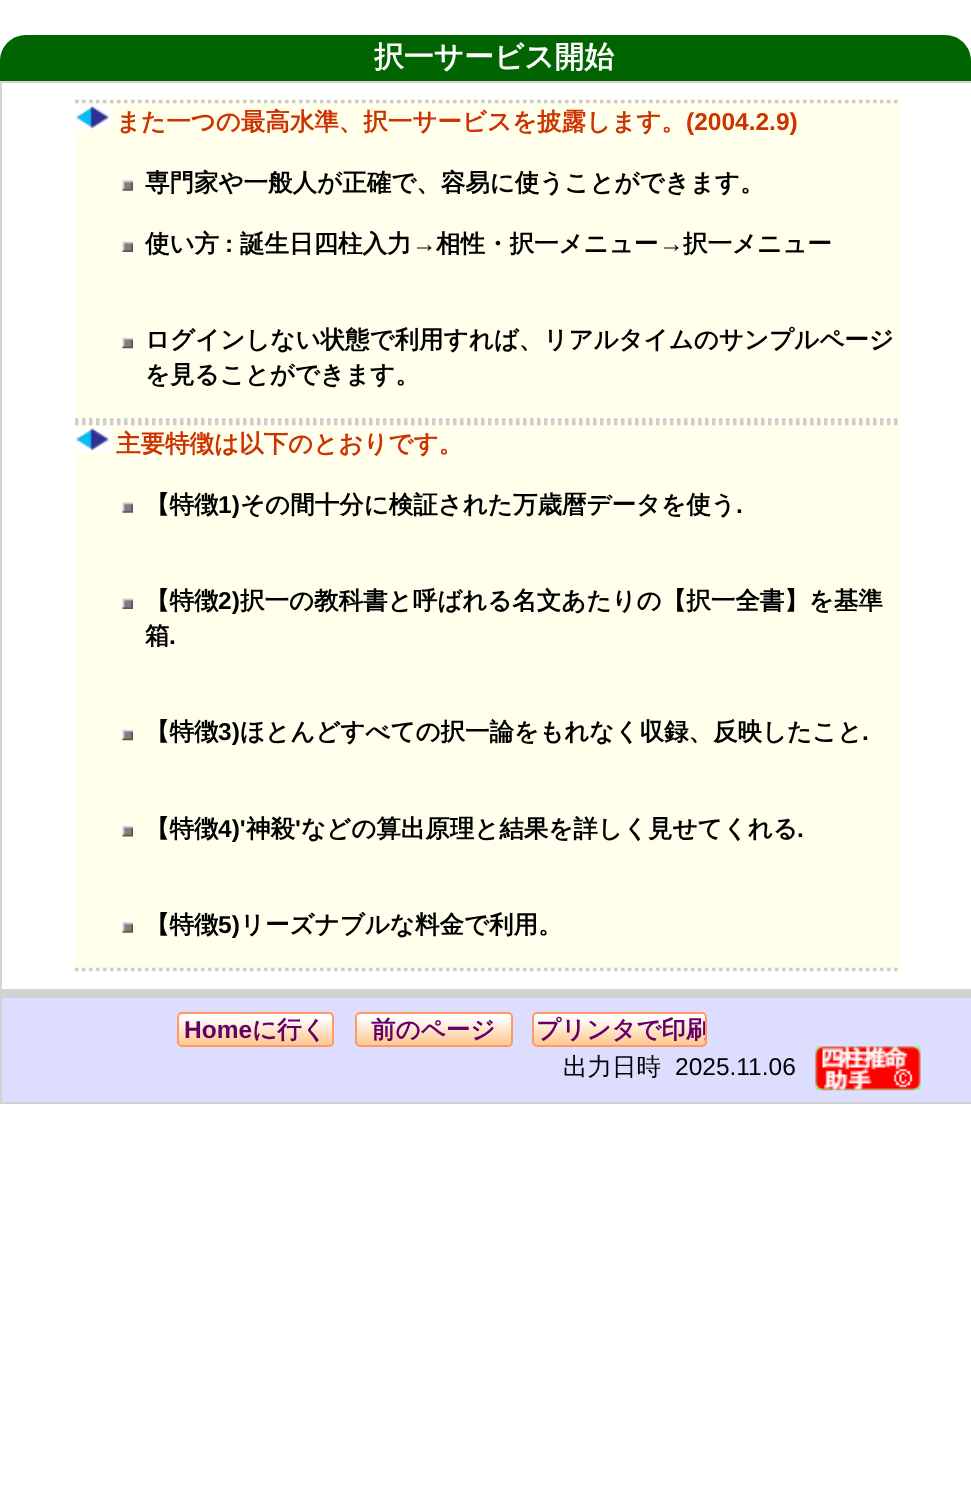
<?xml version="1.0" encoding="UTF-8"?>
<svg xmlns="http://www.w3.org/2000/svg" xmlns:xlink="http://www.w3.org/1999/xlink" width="971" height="1497">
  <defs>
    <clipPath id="clip1"><rect x="534" y="1013" width="171" height="32" rx="4" /></clipPath>
  </defs>
  <rect width="100%" height="100%" fill="#ffffff" />
  <path d="M 26 35 h 919 c 14.5 0 26 11.5 26 26 v 20 h -971 v -20 c 0 -14.5 11.5 -26 26 -26 z" fill="#006400" />
  <rect y="81" width="971" height="2" fill="#d3d3d3" />
  <rect y="989" width="971" height="7" fill="#d3d3d3" />
  <rect y="81" width="2" height="915" fill="#d3d3d3" />
  <rect x="75" y="100" width="825" height="871" fill="#ffffec" />
  <path d="M 75 101.5 h 824.5" fill="none" stroke="#cccccc" stroke-width="3.5" stroke-dasharray="3.5 3.5" />
  <path d="M 75 420 h 824.5" fill="none" stroke="#cccccc" stroke-width="3.5" stroke-dasharray="3.5 3.5" />
  <image x="75" y="105" width="36" height="25" xlink:href="image1.png" />
  <image x="122" y="180" width="11" height="11" xlink:href="image2.png" />
  <image x="122" y="241" width="11" height="11" xlink:href="image3.png" />
  <image x="122" y="337" width="11" height="12" xlink:href="image4.png" />
  <path d="M 75 423.5 h 824.5" fill="none" stroke="#cccccc" stroke-width="3.5" stroke-dasharray="3.5 3.5" />
  <path d="M 75 969.5 h 824.5" fill="none" stroke="#cccccc" stroke-width="3.5" stroke-dasharray="3.5 3.5" />
  <image x="75" y="427" width="36" height="25" xlink:href="image5.png" />
  <image x="122" y="502" width="11" height="11" xlink:href="image2.png" />
  <image x="122" y="598" width="11" height="11" xlink:href="image3.png" />
  <image x="122" y="729" width="11" height="12" xlink:href="image4.png" />
  <image x="122" y="826" width="11" height="11" xlink:href="image6.png" />
  <image x="122" y="922" width="11" height="11" xlink:href="image2.png" />
  <rect x="1" y="997" width="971" height="106" fill="#ddddff" stroke="#d3d3d3" stroke-width="2" />
  <image x="176" y="1011" width="159" height="36" xlink:href="image7.png" />
  <rect x="178" y="1013" width="155" height="33" rx="4" fill="none" stroke="#ff9966" stroke-width="2" />
  <image x="355" y="1011" width="158" height="36" xlink:href="image8.png" />
  <rect x="356" y="1013" width="156" height="33" rx="4" fill="none" stroke="#ff9966" stroke-width="2" />
  <image x="532" y="1011" width="175" height="36" xlink:href="image9.png" />
  <rect x="533" y="1013" width="173" height="33" rx="4" fill="none" stroke="#ff9966" stroke-width="2" />
  <image x="815" y="1046" width="106" height="45" xlink:href="image10.png" />
  <text x="374" y="67" style="font-family: WenQuanYi Zen Hei; font-size: 29.75px; font-weight: bold; fill: #ffffff">択一サービス開始</text>
  <text x="116" y="130" style="font-family: WenQuanYi Zen Hei; font-size: 24.5px; font-weight: bold; fill: #cc3300">また一つの最高水準、択一サービスを披露します。</text>
  <text x="686" y="130" style="font-family: Liberation Sans; font-size: 24.5px; font-weight: bold; fill: #cc3300">(2004.2.9)</text>
  <text x="145" y="191" style="font-family: WenQuanYi Zen Hei; font-size: 24.5px; font-weight: bold; fill: #000000">専門家や一般人が正確で、容易に使うことができます。</text>
  <text x="145" y="252" style="font-family: WenQuanYi Zen Hei; font-size: 24.5px; font-weight: bold; fill: #000000">使い方</text>
  <text x="225" y="252" style="font-family: Liberation Sans; font-size: 24.5px; font-weight: bold; fill: #000000">:</text>
  <text x="240" y="252" style="font-family: WenQuanYi Zen Hei; font-size: 24.5px; font-weight: bold; fill: #000000">誕生日四柱入力</text>
  <text x="412" y="252" style="font-family: Liberation Sans; font-size: 24.5px; font-weight: bold; fill: #000000">→</text>
  <text x="436" y="252" style="font-family: WenQuanYi Zen Hei; font-size: 24.5px; font-weight: bold; fill: #000000">相性・択一メニュー</text>
  <text x="659" y="252" style="font-family: Liberation Sans; font-size: 24.5px; font-weight: bold; fill: #000000">→</text>
  <text x="683" y="252" style="font-family: WenQuanYi Zen Hei; font-size: 24.5px; font-weight: bold; fill: #000000">択一メニュー</text>
  <text x="145" y="348" style="font-family: WenQuanYi Zen Hei; font-size: 24.5px; font-weight: bold; fill: #000000">ログインしない状態で利用すれば、リアルタイムのサンプルページ</text>
  <text x="145" y="383" style="font-family: WenQuanYi Zen Hei; font-size: 24.5px; font-weight: bold; fill: #000000">を見ることができます。</text>
  <text x="116" y="452" style="font-family: WenQuanYi Zen Hei; font-size: 24.5px; font-weight: bold; fill: #cc3300">主要特徴は以下のとおりです。</text>
  <text x="145" y="513" style="font-family: WenQuanYi Zen Hei; font-size: 24.5px; font-weight: bold; fill: #000000">【特徴</text>
  <text x="218" y="513" style="font-family: Liberation Sans; font-size: 24.5px; font-weight: bold; fill: #000000">1)</text>
  <text x="240" y="513" style="font-family: WenQuanYi Zen Hei; font-size: 24.5px; font-weight: bold; fill: #000000">その間十分に検証された万歳暦データを使う</text>
  <text x="736" y="513" style="font-family: Liberation Sans; font-size: 24.5px; font-weight: bold; fill: #000000">.</text>
  <text x="145" y="609" style="font-family: WenQuanYi Zen Hei; font-size: 24.5px; font-weight: bold; fill: #000000">【特徴</text>
  <text x="218" y="609" style="font-family: Liberation Sans; font-size: 24.5px; font-weight: bold; fill: #000000">2)</text>
  <text x="240" y="609" style="font-family: WenQuanYi Zen Hei; font-size: 24.5px; font-weight: bold; fill: #000000">択一の教科書と呼ばれる名文あたりの【択一全書】を基準</text>
  <text x="145" y="644" style="font-family: WenQuanYi Zen Hei; font-size: 24.5px; font-weight: bold; fill: #000000">箱</text>
  <text x="169" y="644" style="font-family: Liberation Sans; font-size: 24.5px; font-weight: bold; fill: #000000">.</text>
  <text x="145" y="740" style="font-family: WenQuanYi Zen Hei; font-size: 24.5px; font-weight: bold; fill: #000000">【特徴</text>
  <text x="218" y="740" style="font-family: Liberation Sans; font-size: 24.5px; font-weight: bold; fill: #000000">3)</text>
  <text x="240" y="740" style="font-family: WenQuanYi Zen Hei; font-size: 24.5px; font-weight: bold; fill: #000000">ほとんどすべての択一論をもれなく収録、反映したこと</text>
  <text x="862" y="740" style="font-family: Liberation Sans; font-size: 24.5px; font-weight: bold; fill: #000000">.</text>
  <text x="145" y="837" style="font-family: WenQuanYi Zen Hei; font-size: 24.5px; font-weight: bold; fill: #000000">【特徴</text>
  <text x="218" y="837" style="font-family: Liberation Sans; font-size: 24.5px; font-weight: bold; fill: #000000">4)'</text>
  <text x="246" y="837" style="font-family: WenQuanYi Zen Hei; font-size: 24.5px; font-weight: bold; fill: #000000">神殺</text>
  <text x="295" y="837" style="font-family: Liberation Sans; font-size: 24.5px; font-weight: bold; fill: #000000">'</text>
  <text x="301" y="837" style="font-family: WenQuanYi Zen Hei; font-size: 24.5px; font-weight: bold; fill: #000000">などの算出原理と結果を詳しく見せてくれる</text>
  <text x="797" y="837" style="font-family: Liberation Sans; font-size: 24.5px; font-weight: bold; fill: #000000">.</text>
  <text x="145" y="933" style="font-family: WenQuanYi Zen Hei; font-size: 24.5px; font-weight: bold; fill: #000000">【特徴</text>
  <text x="218" y="933" style="font-family: Liberation Sans; font-size: 24.5px; font-weight: bold; fill: #000000">5)</text>
  <text x="240" y="933" style="font-family: WenQuanYi Zen Hei; font-size: 24.5px; font-weight: bold; fill: #000000">リーズナブルな料金で利用。</text>
  <text x="184" y="1038" style="font-family: Liberation Sans; font-size: 24.5px; font-weight: bold; fill: #660066">Home</text>
  <text x="252" y="1038" style="font-family: WenQuanYi Zen Hei; font-size: 24.5px; font-weight: bold; fill: #660066">に行く</text>
  <text x="371" y="1038" style="font-family: WenQuanYi Zen Hei; font-size: 24.5px; font-weight: bold; fill: #660066">前のページ</text>
  <g clip-path="url(#clip1)">
    <text x="536" y="1038" style="font-family: WenQuanYi Zen Hei; font-size: 24.5px; font-weight: bold; fill: #660066">プリンタで印刷</text>
  </g>
  <text x="563" y="1075" style="font-family: WenQuanYi Zen Hei; font-size: 24.5px; font-weight: 500; fill: #000000">出力日時</text>
  <text x="675" y="1075" style="font-family: Liberation Sans; font-size: 24.5px; fill: #000000">2025.11.06</text>
</svg>
